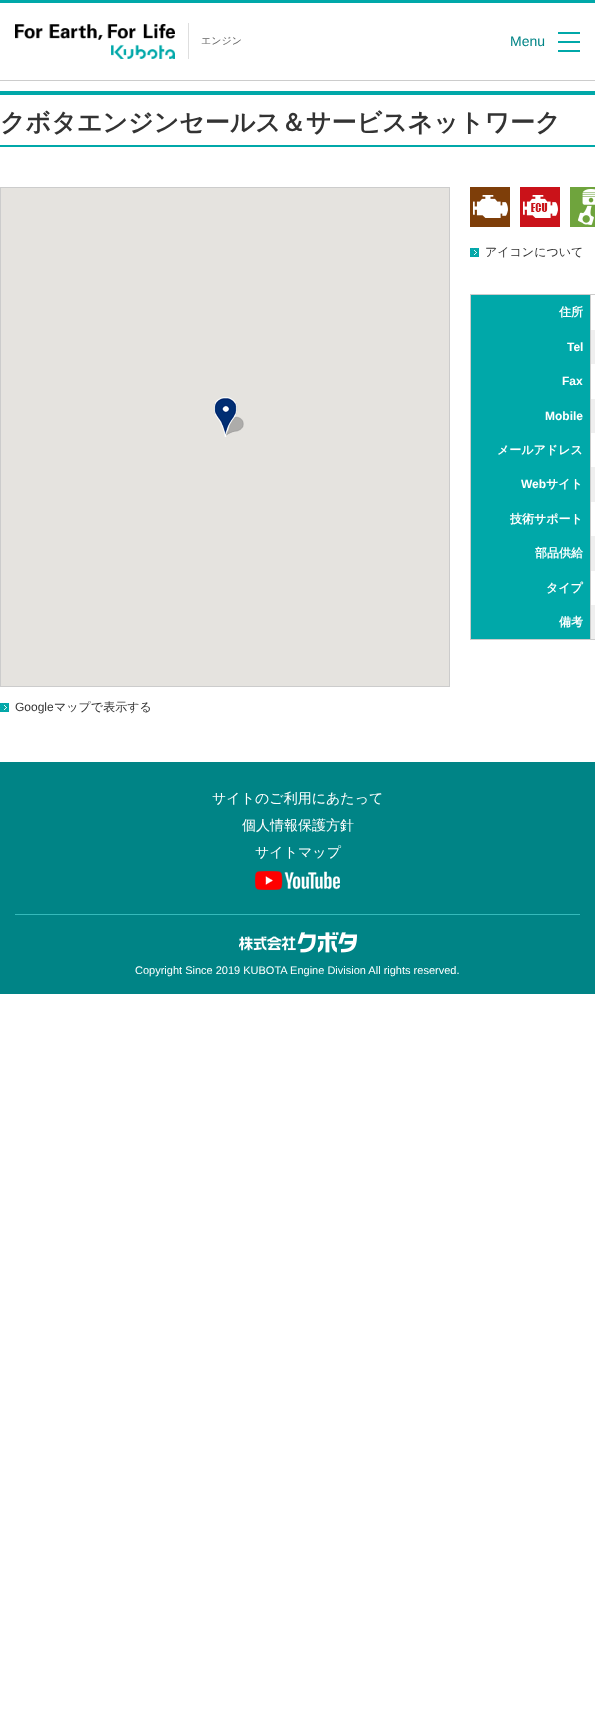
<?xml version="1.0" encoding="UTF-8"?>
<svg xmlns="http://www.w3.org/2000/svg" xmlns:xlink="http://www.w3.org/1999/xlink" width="595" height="1725">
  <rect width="100%" height="100%" fill="#ffffff" />
  <rect width="595" height="3" fill="#00a8a9" />
  <rect y="80" width="595" height="1" fill="#cccccc" />
  <rect x="188" y="23" width="1" height="36" fill="#dedede" />
  <image x="15" y="24" width="160" height="35" xlink:href="image1.png" />
  <rect x="558" y="41" width="22" height="2" fill="#00a8a9" />
  <rect x="558" y="32" width="22" height="2" fill="#00a8a9" />
  <rect x="558" y="50" width="22" height="2" fill="#00a8a9" />
  <rect y="91" width="595" height="4" fill="#00a8a9" />
  <rect y="145" width="595" height="2" fill="#00a8a9" />
  <image x="470" y="187" width="40" height="40" xlink:href="image2.png" />
  <image x="520" y="187" width="40" height="40" xlink:href="image3.png" />
  <image x="570" y="187" width="25" height="40" xlink:href="image4.png" />
  <image x="470" y="248" width="9" height="9" xlink:href="image5.png" />
  <rect x="470" y="294" width="125" height="1" fill="#cccccc" />
  <rect x="591" y="605" width="4" height="35" fill="#efefef" />
  <rect x="470" y="639" width="125" height="1" fill="#cccccc" />
  <rect x="470" y="294" width="1" height="346" fill="#cccccc" />
  <rect x="471" y="295" width="119" height="344" fill="#00a8a9" />
  <rect x="591" y="330" width="4" height="34" fill="#efefef" />
  <rect x="591" y="399" width="4" height="34" fill="#efefef" />
  <rect x="591" y="467" width="4" height="35" fill="#efefef" />
  <rect x="591" y="536" width="4" height="35" fill="#efefef" />
  <rect x="590" y="294" width="1" height="346" fill="#cccccc" />
  <rect x="0.5" y="187.5" width="449" height="499" fill="none" stroke="#cccccc" />
  <rect x="1" y="188" width="448" height="498" fill="#e5e3df" />
  <image x="214" y="397" width="30" height="40" xlink:href="image6.png" />
  <image x="0" y="703" width="9" height="9" xlink:href="image5.png" />
  <rect y="762" width="595" height="232" fill="#008486" />
  <rect x="15" y="914" width="565" height="1" fill="#35babb" />
  <image x="255" y="871" width="85" height="19" xlink:href="image7.png" />
  <image x="239" y="932" width="118" height="21" xlink:href="image8.png" />
  <text x="201" y="44" style="font-family: WenQuanYi Zen Hei; font-size: 10px; font-weight: 500; fill: #666666">エンジン</text>
  <text x="510" y="46" style="font-family: Liberation Sans; font-size: 14px; fill: #008486">Menu</text>
  <text x="0" y="131" style="font-family: WenQuanYi Zen Hei; font-size: 25px; font-weight: bold; fill: #333333">クボタエンジンセールス＆サービスネットワーク</text>
  <text x="485" y="256" style="font-family: WenQuanYi Zen Hei; font-size: 12px; font-weight: 500; fill: #333333">アイコンについて</text>
  <text x="559" y="316" style="font-family: WenQuanYi Zen Hei; font-size: 12px; font-weight: bold; fill: #ffffff">住所</text>
  <text x="567" y="351" style="font-family: Liberation Sans; font-size: 12px; font-weight: bold; fill: #ffffff">Tel</text>
  <text x="562" y="385" style="font-family: Liberation Sans; font-size: 12px; font-weight: bold; fill: #ffffff">Fax</text>
  <text x="545" y="420" style="font-family: Liberation Sans; font-size: 12px; font-weight: bold; fill: #ffffff">Mobile</text>
  <text x="497" y="454" style="font-family: WenQuanYi Zen Hei; font-size: 12px; font-weight: bold; fill: #ffffff">メールアドレス</text>
  <text x="521" y="488" style="font-family: Liberation Sans; font-size: 12px; font-weight: bold; fill: #ffffff">Web</text>
  <text x="546" y="488" style="font-family: WenQuanYi Zen Hei; font-size: 12px; font-weight: bold; fill: #ffffff">サイト</text>
  <text x="510" y="523" style="font-family: WenQuanYi Zen Hei; font-size: 12px; font-weight: bold; fill: #ffffff">技術サポート</text>
  <text x="535" y="557" style="font-family: WenQuanYi Zen Hei; font-size: 12px; font-weight: bold; fill: #ffffff">部品供給</text>
  <text x="546" y="592" style="font-family: WenQuanYi Zen Hei; font-size: 12px; font-weight: bold; fill: #ffffff">タイプ</text>
  <text x="559" y="626" style="font-family: WenQuanYi Zen Hei; font-size: 12px; font-weight: bold; fill: #ffffff">備考</text>
  <text x="15" y="711" style="font-family: Liberation Sans; font-size: 12px; fill: #333333">Google</text>
  <text x="54" y="711" style="font-family: WenQuanYi Zen Hei; font-size: 12px; font-weight: 500; fill: #333333">マップで表示する</text>
  <text x="212" y="803" style="font-family: WenQuanYi Zen Hei; font-size: 14px; font-weight: 500; fill: #ffffff">サイトのご利用にあたって</text>
  <text x="242" y="830" style="font-family: WenQuanYi Zen Hei; font-size: 14px; font-weight: 500; fill: #ffffff">個人情報保護方針</text>
  <text x="255" y="857" style="font-family: WenQuanYi Zen Hei; font-size: 14px; font-weight: 500; fill: #ffffff">サイトマップ</text>
  <text x="135" y="974" style="font-family: Liberation Sans; font-size: 11px; fill: #ffffff">Copyright Since 2019 KUBOTA Engine Division All rights reserved.</text>
</svg>
